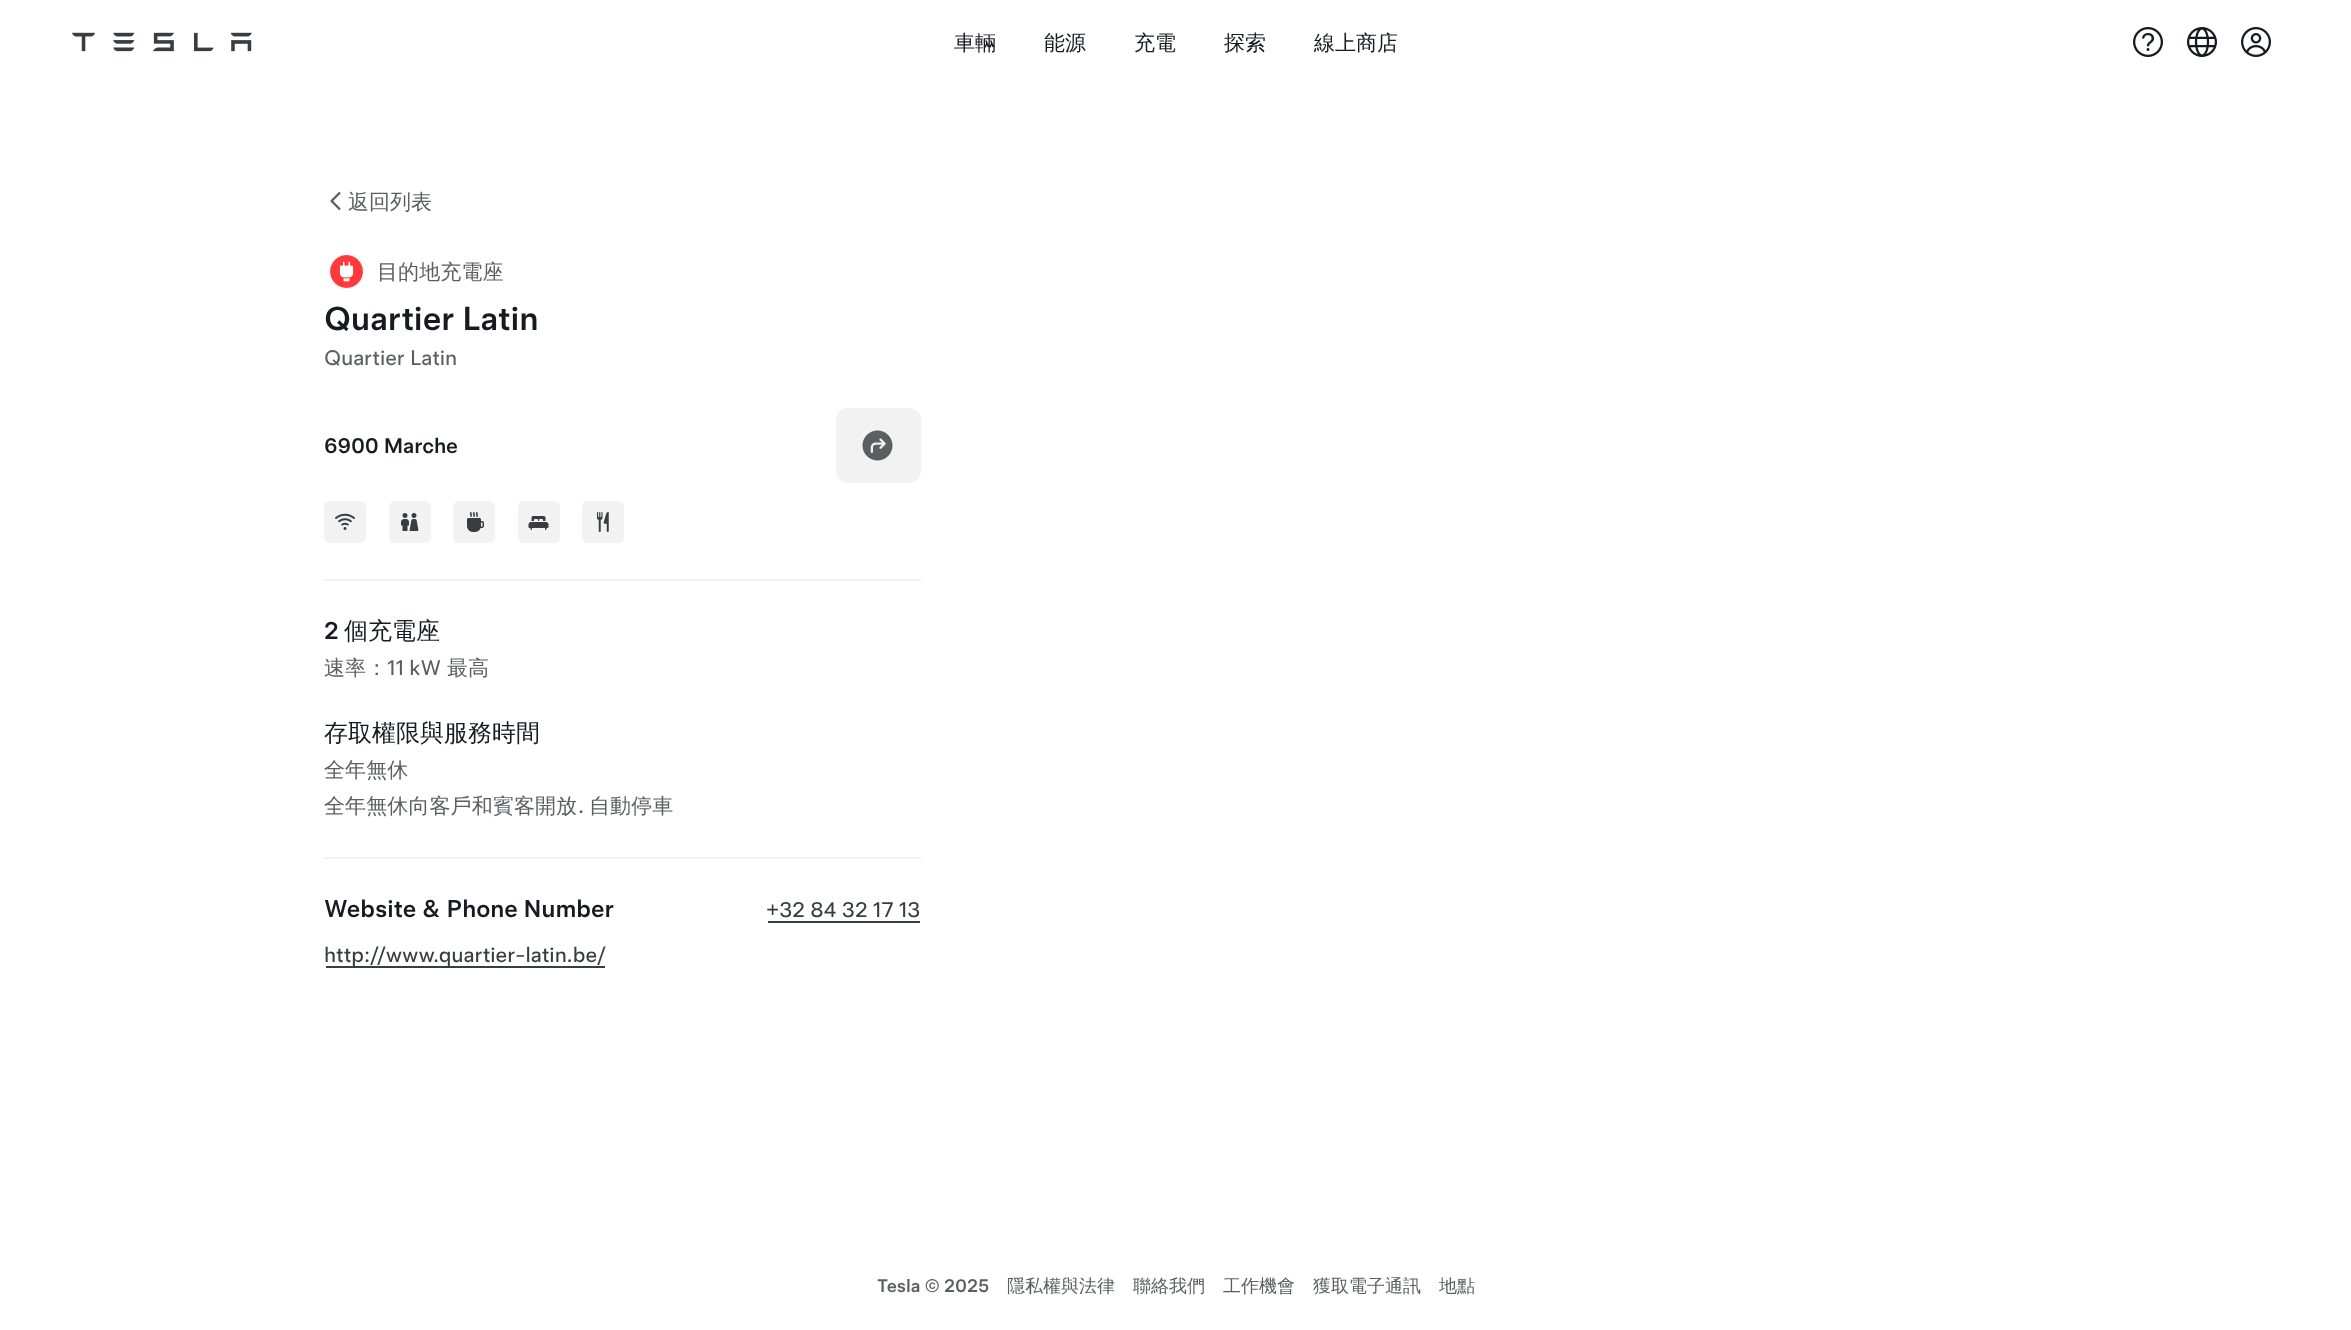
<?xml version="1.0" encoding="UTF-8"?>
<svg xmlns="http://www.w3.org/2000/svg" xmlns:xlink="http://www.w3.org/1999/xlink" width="2351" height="1330">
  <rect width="100%" height="100%" fill="#ffffff" />
  <image x="72" y="32" width="180" height="20" xlink:href="image1.png" />
  <image x="2133" y="27" width="30" height="30" xlink:href="image2.png" />
  <image x="2187" y="27" width="30" height="30" xlink:href="image3.png" />
  <image x="2241" y="27" width="30" height="30" xlink:href="image4.png" />
  <image x="330" y="192" width="11" height="18" xlink:href="image5.png" />
  <image x="329" y="254" width="35" height="35" xlink:href="image6.png" />
  <rect x="836" y="408" width="85" height="75" rx="12" fill="#f2f2f2" />
  <image x="862" y="430" width="31" height="31" xlink:href="image7.png" />
  <rect x="324" y="501" width="42" height="42" rx="6" fill="#f2f2f2" />
  <image x="335" y="513" width="20" height="17" xlink:href="image8.png" />
  <rect x="389" y="501" width="42" height="42" rx="6" fill="#f2f2f2" />
  <image x="401" y="513" width="18" height="18" xlink:href="image9.png" />
  <rect x="453" y="501" width="42" height="42" rx="6" fill="#f2f2f2" />
  <image x="467" y="512" width="17" height="20" xlink:href="image10.png" />
  <rect x="518" y="501" width="42" height="42" rx="6" fill="#f2f2f2" />
  <image x="528" y="516" width="21" height="14" xlink:href="image11.png" />
  <rect x="582" y="501" width="42" height="42" rx="6" fill="#f2f2f2" />
  <image x="597" y="512" width="12" height="20" xlink:href="image12.png" />
  <rect x="324" y="579" width="597" height="2" fill="#f2f2f2" />
  <rect x="324" y="857" width="597" height="2" fill="#f2f2f2" />
  <rect x="768" y="921" width="152" height="2" fill="#393c41" />
  <rect x="326" y="966" width="279" height="2" fill="#393c41" />
  <text x="954" y="50" style="font-family: WenQuanYi Zen Hei; font-size: 21px; font-weight: 500; fill: #171a20">車輛</text>
  <text x="1044" y="50" style="font-family: WenQuanYi Zen Hei; font-size: 21px; font-weight: 500; fill: #171a20">能源</text>
  <text x="1134" y="50" style="font-family: WenQuanYi Zen Hei; font-size: 21px; font-weight: 500; fill: #171a20">充電</text>
  <text x="1224" y="50" style="font-family: WenQuanYi Zen Hei; font-size: 21px; font-weight: 500; fill: #171a20">探索</text>
  <text x="1314" y="50" style="font-family: WenQuanYi Zen Hei; font-size: 21px; font-weight: 500; fill: #171a20">線上商店</text>
  <text x="348" y="209" style="font-family: WenQuanYi Zen Hei; font-size: 21px; font-weight: 500; fill: #5c5e62">返回列表</text>
  <text x="377" y="279" style="font-family: WenQuanYi Zen Hei; font-size: 21px; font-weight: 500; letter-spacing: 0.1px; fill: #5c5e62">目的地充電座</text>
  <text x="324" y="330" style="font-family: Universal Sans; font-size: 33px; font-weight: 500; fill: #171a20">Quartier Latin</text>
  <text x="324" y="365" style="font-family: Universal Sans; font-size: 21px; fill: #5c5e62">Quartier Latin</text>
  <text x="324" y="453" style="font-family: Universal Sans; font-size: 21px; font-weight: 500; letter-spacing: -0.1px; fill: #171a20">6900 Marche</text>
  <text x="324" y="639" style="font-family: Universal Sans; font-size: 24px; font-weight: 500; fill: #171a20">2</text>
  <text x="344" y="639" style="font-family: WenQuanYi Zen Hei; font-size: 24px; font-weight: 500; fill: #171a20">個充電座</text>
  <text x="324" y="675" style="font-family: WenQuanYi Zen Hei; font-size: 21px; font-weight: 500; letter-spacing: 0.1px; fill: #5c5e62">速率：</text>
  <text x="387" y="675" style="font-family: Universal Sans; font-size: 21px; letter-spacing: 0.1px; fill: #5c5e62">11 kW</text>
  <text x="447" y="675" style="font-family: WenQuanYi Zen Hei; font-size: 21px; font-weight: 500; letter-spacing: 0.1px; fill: #5c5e62">最高</text>
  <text x="324" y="741" style="font-family: WenQuanYi Zen Hei; font-size: 24px; font-weight: 500; fill: #171a20">存取權限與服務時間</text>
  <text x="324" y="777" style="font-family: WenQuanYi Zen Hei; font-size: 21px; font-weight: 500; letter-spacing: 0.1px; fill: #5c5e62">全年無休</text>
  <text x="324" y="813" style="font-family: WenQuanYi Zen Hei; font-size: 21px; font-weight: 500; letter-spacing: 0.1px; fill: #5c5e62">全年無休向客戶和賓客開放</text>
  <text x="578" y="813" style="font-family: Universal Sans; font-size: 21px; letter-spacing: 0.1px; fill: #5c5e62">.</text>
  <text x="589" y="813" style="font-family: WenQuanYi Zen Hei; font-size: 21px; font-weight: 500; letter-spacing: 0.1px; fill: #5c5e62">自動停車</text>
  <text x="324" y="917" style="font-family: Universal Sans; font-size: 24px; font-weight: 500; fill: #171a20">Website &amp; Phone Number</text>
  <text x="766" y="917" style="font-family: Universal Sans; font-size: 21px; fill: #393c41">+32 84 32 17 13</text>
  <text x="324" y="962" style="font-family: Universal Sans; font-size: 21px; fill: #393c41">http://www.quartier-latin.be/</text>
  <text x="877" y="1292" style="font-family: Universal Sans; font-size: 18px; font-weight: 500; fill: #5c5e62">Tesla © 2025</text>
  <text x="1007" y="1292" style="font-family: WenQuanYi Zen Hei; font-size: 18px; font-weight: 500; fill: #5c5e62">隱私權與法律</text>
  <text x="1133" y="1292" style="font-family: WenQuanYi Zen Hei; font-size: 18px; font-weight: 500; fill: #5c5e62">聯絡我們</text>
  <text x="1223" y="1292" style="font-family: WenQuanYi Zen Hei; font-size: 18px; font-weight: 500; fill: #5c5e62">工作機會</text>
  <text x="1313" y="1292" style="font-family: WenQuanYi Zen Hei; font-size: 18px; font-weight: 500; fill: #5c5e62">獲取電子通訊</text>
  <text x="1439" y="1292" style="font-family: WenQuanYi Zen Hei; font-size: 18px; font-weight: 500; fill: #5c5e62">地點</text>
</svg>
